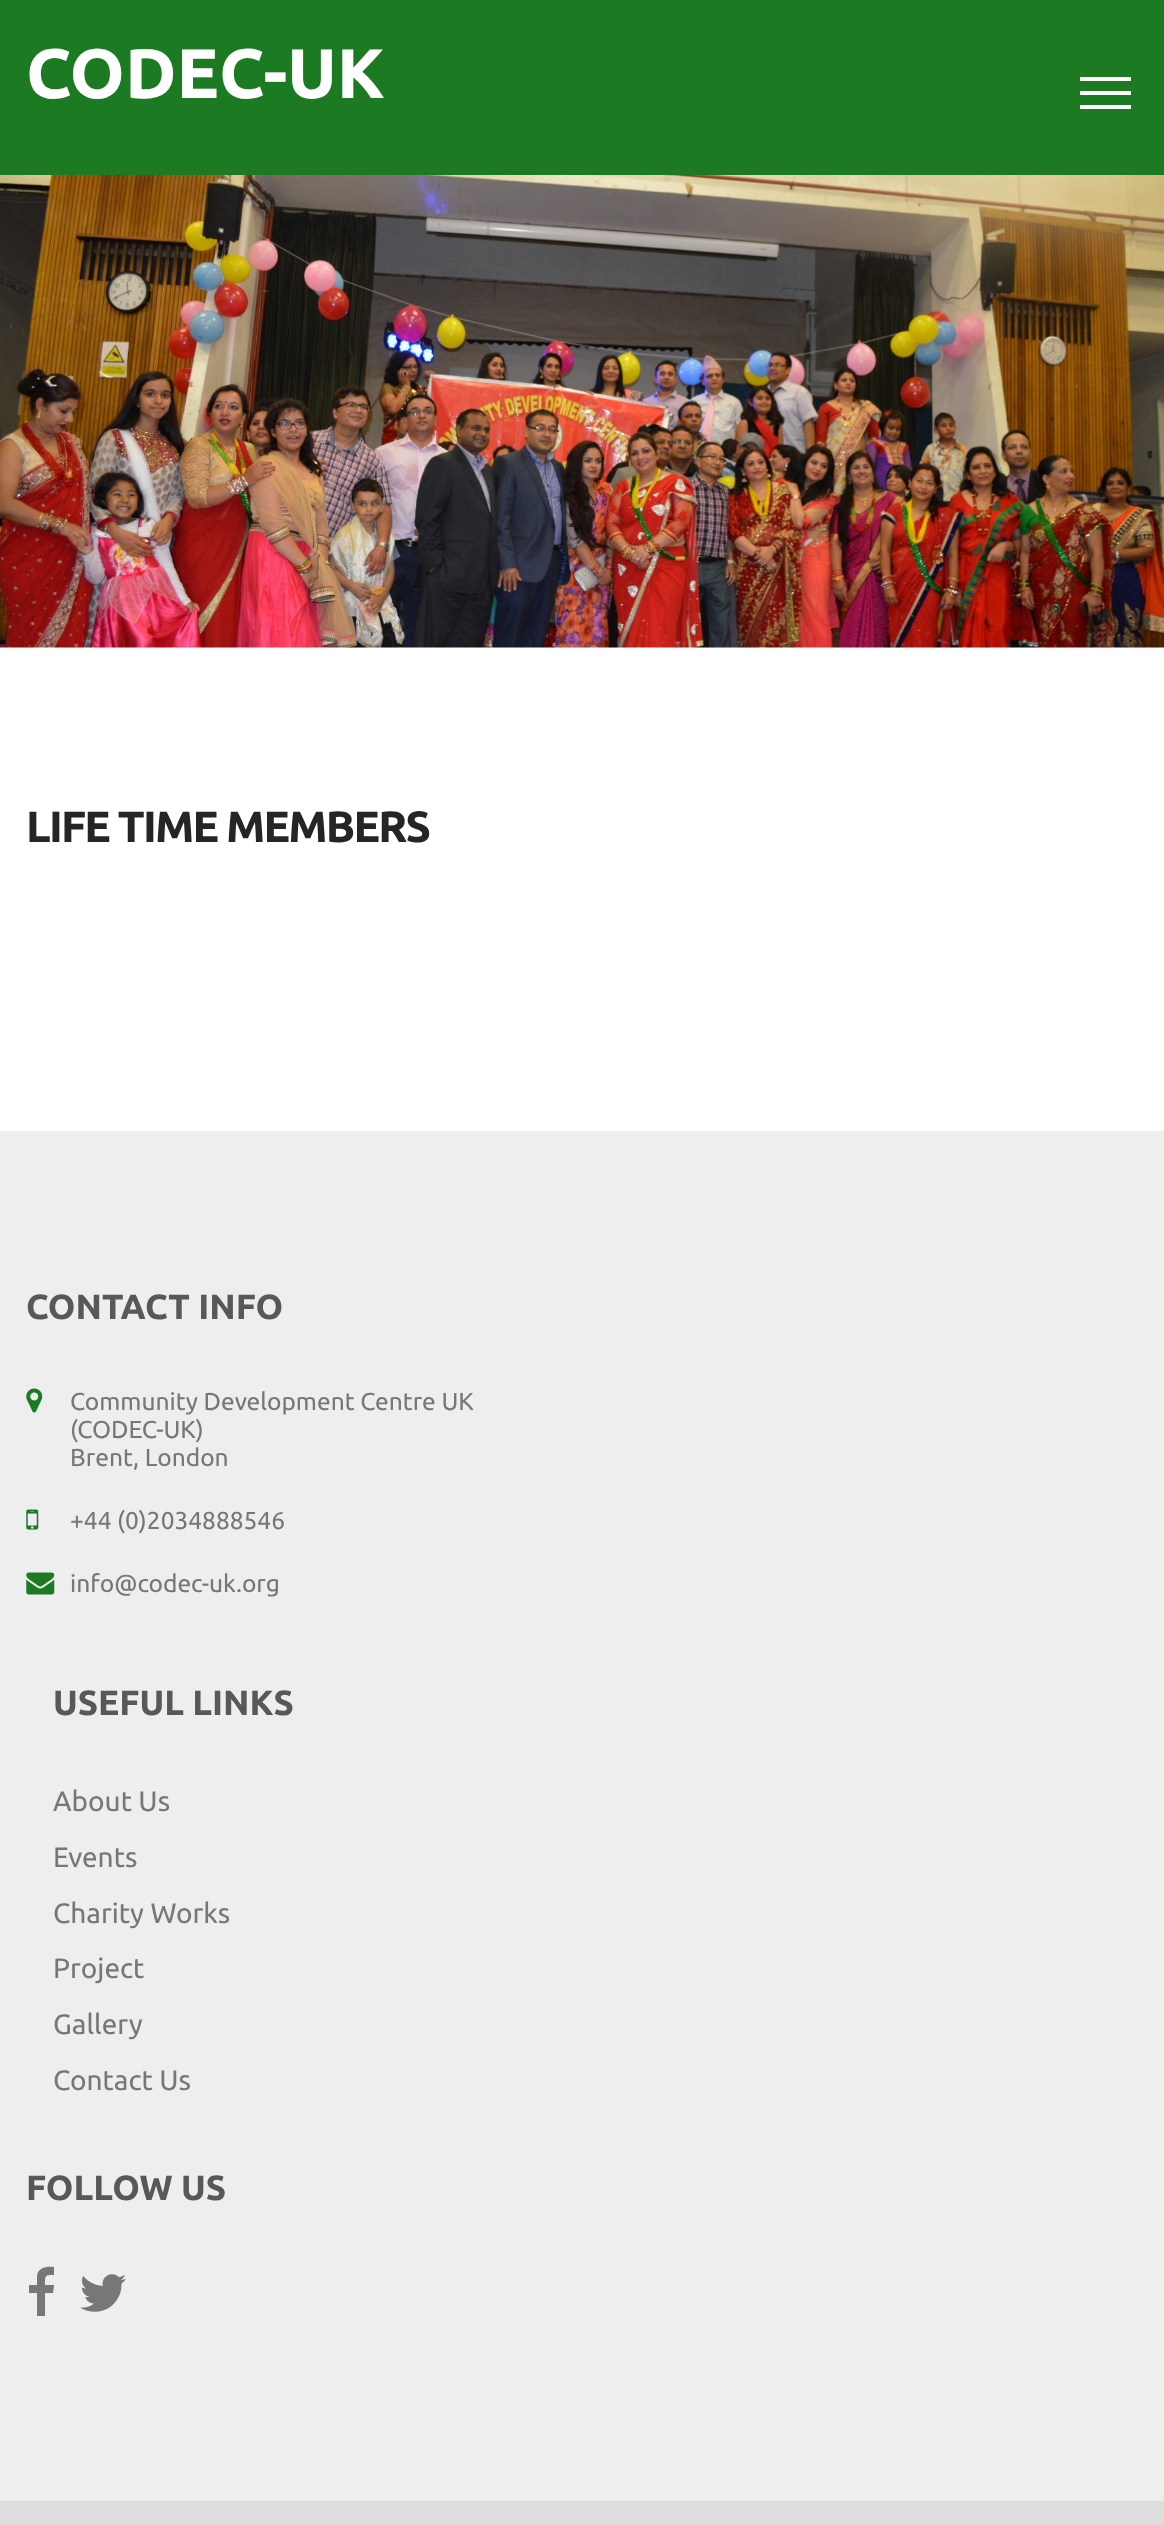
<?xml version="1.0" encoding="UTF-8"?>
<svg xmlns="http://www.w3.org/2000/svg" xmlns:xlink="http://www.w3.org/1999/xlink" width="1164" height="2525">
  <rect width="100%" height="100%" fill="#ffffff" />
  <rect width="1164" height="175" fill="#1c7a23" />
  <rect x="1080" y="77" width="51" height="4" fill="#ffffff" />
  <rect x="1080" y="91" width="51" height="4" fill="#ffffff" />
  <rect x="1080" y="105" width="51" height="4" fill="#ffffff" />
  <image x="0" y="175" width="1164" height="473" xlink:href="image1.png" />
  <rect y="1131" width="1164" height="1370" fill="#eeeeee" />
  <image x="26" y="1388" width="17" height="25" xlink:href="image2.png" />
  <image x="26" y="1509" width="13" height="21" xlink:href="image3.png" />
  <image x="26" y="1572" width="29" height="23" xlink:href="image4.png" />
  <path d="M 54 2267 v 8 c -9 0 -9 0 -9 10 h 9 l -1 8 h -8 v 23 h -8 v -23 h -8 v -8 h 8 v -9 c 1 -9 10 -10 17 -9 z" fill="#777777" />
  <image x="80" y="2274" width="46" height="38" xlink:href="image5.png" />
  <rect y="2501" width="1164" height="24" fill="#dddddd" />
  <text x="26" y="98" style="font-family: Ubuntu; font-size: 70px; font-weight: bold; fill: #ffffff">CODEC-UK</text>
  <text x="26" y="842" style="font-family: Ubuntu; font-size: 43.75px; font-weight: bold; letter-spacing: -1.75px; fill: #252525">LIFE TIME MEMBERS</text>
  <text x="26" y="1319" style="font-family: Ubuntu; font-size: 35px; font-weight: bold; fill: #585858">CONTACT INFO</text>
  <text x="70" y="1410" style="font-family: Ubuntu; font-size: 24.5px; fill: #777777">Community Development Centre UK</text>
  <text x="70" y="1438" style="font-family: Ubuntu; font-size: 24.5px; fill: #777777">(CODEC-UK)</text>
  <text x="70" y="1466" style="font-family: Ubuntu; font-size: 24.5px; fill: #777777">Brent, London</text>
  <text x="70" y="1529" style="font-family: Ubuntu; font-size: 24.5px; fill: #777777">+44 (0)2034888546</text>
  <text x="70" y="1592" style="font-family: Ubuntu; font-size: 24.5px; fill: #777777">info@codec-uk.org</text>
  <text x="53" y="1715" style="font-family: Ubuntu; font-size: 35px; font-weight: bold; fill: #585858">USEFUL LINKS</text>
  <text x="53" y="1811" style="font-family: Ubuntu; font-size: 28px; fill: #777777">About Us</text>
  <text x="53" y="1867" style="font-family: Ubuntu; font-size: 28px; fill: #777777">Events</text>
  <text x="53" y="1923" style="font-family: Ubuntu; font-size: 28px; fill: #777777">Charity Works</text>
  <text x="53" y="1978" style="font-family: Ubuntu; font-size: 28px; fill: #777777">Project</text>
  <text x="53" y="2034" style="font-family: Ubuntu; font-size: 28px; fill: #777777">Gallery</text>
  <text x="53" y="2090" style="font-family: Ubuntu; font-size: 28px; fill: #777777">Contact Us</text>
  <text x="26" y="2200" style="font-family: Ubuntu; font-size: 35px; font-weight: bold; fill: #585858">FOLLOW US</text>
</svg>
